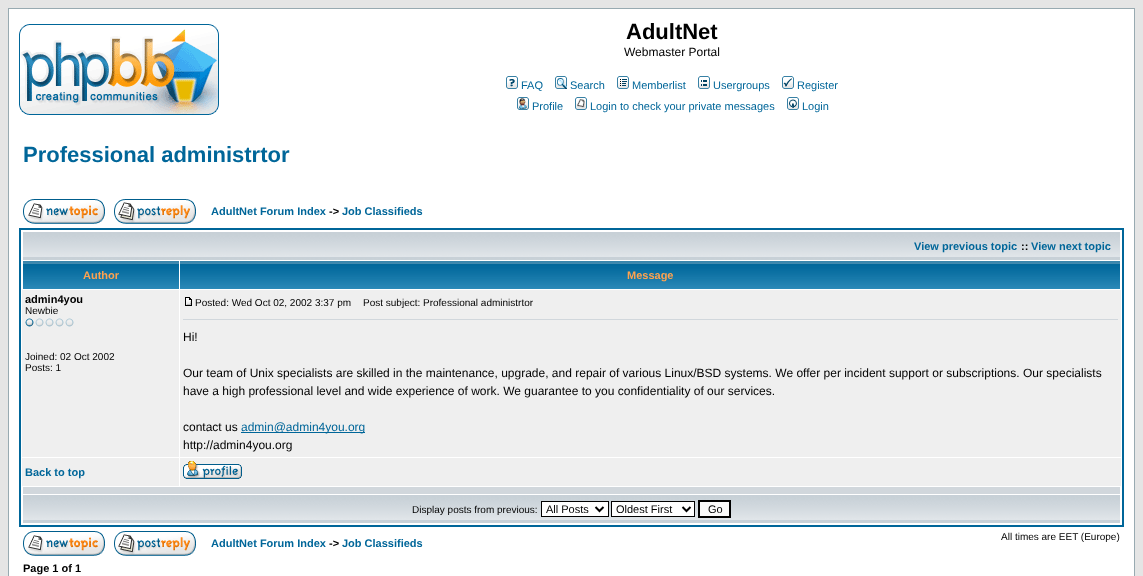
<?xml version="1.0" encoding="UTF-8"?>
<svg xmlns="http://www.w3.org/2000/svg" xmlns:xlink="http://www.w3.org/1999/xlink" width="1143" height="576">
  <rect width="100%" height="100%" fill="#e5e5e5" />
  <rect x="8.5" y="8.5" width="1126" height="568" fill="#ffffff" stroke="#98aab1" />
  <image x="19" y="24" width="200" height="91" xlink:href="image1.png" />
  <image x="506" y="76" width="12" height="13" xlink:href="image2.png" />
  <image x="555" y="76" width="12" height="13" xlink:href="image3.png" />
  <image x="617" y="76" width="12" height="13" xlink:href="image4.png" />
  <image x="698" y="76" width="12" height="13" xlink:href="image5.png" />
  <image x="782" y="76" width="12" height="13" xlink:href="image6.png" />
  <image x="517" y="97" width="12" height="13" xlink:href="image7.png" />
  <image x="575" y="97" width="12" height="13" xlink:href="image8.png" />
  <image x="787" y="97" width="12" height="13" xlink:href="image9.png" />
  <image x="23" y="199" width="82" height="25" xlink:href="image10.png" />
  <image x="114" y="199" width="82" height="25" xlink:href="image11.png" />
  <rect x="20" y="229" width="1103" height="297" fill="none" stroke="#006699" stroke-width="2" />
  <image x="23" y="232" width="1097" height="28" xlink:href="image12.png" />
  <image x="23" y="261" width="156" height="28" xlink:href="image13.png" />
  <image x="180" y="261" width="940" height="28" xlink:href="image14.png" />
  <rect x="22" y="290" width="157" height="167" fill="#efefef" />
  <image x="25" y="318" width="49" height="9" xlink:href="image15.png" />
  <rect x="180" y="290" width="941" height="167" fill="#efefef" />
  <image x="185" y="297" width="7" height="9" xlink:href="image16.png" />
  <rect x="183" y="319" width="935" height="1" fill="#d1d7dc" />
  <rect x="241" y="432" width="124" height="1" fill="#006699" />
  <rect x="22" y="458" width="157" height="28" fill="#efefef" />
  <rect x="180" y="458" width="941" height="28" fill="#efefef" />
  <image x="183" y="461" width="59" height="18" xlink:href="image17.png" />
  <rect x="23" y="487" width="1097" height="7" fill="#d1d7dc" />
  <image x="23" y="495" width="1097" height="28" xlink:href="image12.png" />
  <rect x="541.5" y="501.5" width="67" height="15" fill="#ffffff" stroke="#000000" />
  <path d="M 595.5 507 l 4 4 l 4 -4" fill="none" stroke="#000000" stroke-width="2" />
  <rect x="611.5" y="501.5" width="83" height="15" fill="#ffffff" stroke="#000000" />
  <path d="M 682.5 507 l 4 4 l 4 -4" fill="none" stroke="#000000" stroke-width="2" />
  <rect x="699" y="501" width="31" height="16" fill="#fafafa" stroke="#000000" stroke-width="2" />
  <image x="23" y="531" width="82" height="25" xlink:href="image10.png" />
  <image x="114" y="531" width="82" height="25" xlink:href="image11.png" />
  <text x="626" y="39" style="font-family: Liberation Sans; font-size: 22px; font-weight: bold; fill: #000000">AdultNet</text>
  <text x="624" y="56" style="font-family: Liberation Sans; font-size: 12px; fill: #000000">Webmaster Portal</text>
  <text x="521" y="89" style="font-family: Liberation Sans; font-size: 11px; fill: #006699">FAQ</text>
  <text x="570" y="89" style="font-family: Liberation Sans; font-size: 11px; fill: #006699">Search</text>
  <text x="632" y="89" style="font-family: Liberation Sans; font-size: 11px; fill: #006699">Memberlist</text>
  <text x="713" y="89" style="font-family: Liberation Sans; font-size: 11px; fill: #006699">Usergroups</text>
  <text x="797" y="89" style="font-family: Liberation Sans; font-size: 11px; fill: #006699">Register</text>
  <text x="532" y="110" style="font-family: Liberation Sans; font-size: 11px; fill: #006699">Profile</text>
  <text x="590" y="110" style="font-family: Liberation Sans; font-size: 11px; fill: #006699">Login to check your private messages</text>
  <text x="802" y="110" style="font-family: Liberation Sans; font-size: 11px; fill: #006699">Login</text>
  <text x="23" y="162" style="font-family: Liberation Sans; font-size: 22px; font-weight: bold; fill: #006699">Professional administrtor</text>
  <text x="211" y="215" style="font-family: Liberation Sans; font-size: 11px; font-weight: bold; fill: #006699">AdultNet Forum Index</text>
  <text x="329" y="215" style="font-family: Liberation Sans; font-size: 11px; font-weight: bold; fill: #000000">-&gt;</text>
  <text x="342" y="215" style="font-family: Liberation Sans; font-size: 11px; font-weight: bold; fill: #006699">Job Classifieds</text>
  <text x="914" y="250" style="font-family: Liberation Sans; font-size: 11px; font-weight: bold; fill: #006699">View previous topic</text>
  <text x="1021" y="250" style="font-family: Liberation Sans; font-size: 11px; font-weight: bold; fill: #000000">::</text>
  <text x="1031" y="250" style="font-family: Liberation Sans; font-size: 11px; font-weight: bold; fill: #006699">View next topic</text>
  <text x="83" y="279" style="font-family: Liberation Sans; font-size: 11px; font-weight: bold; fill: #ffa34f">Author</text>
  <text x="627" y="279" style="font-family: Liberation Sans; font-size: 11px; font-weight: bold; fill: #ffa34f">Message</text>
  <text x="25" y="303" style="font-family: Liberation Sans; font-size: 11px; font-weight: bold; fill: #000000">admin4you</text>
  <text x="25" y="314" style="font-family: Liberation Sans; font-size: 10px; fill: #000000">Newbie</text>
  <text x="25" y="360" style="font-family: Liberation Sans; font-size: 10px; fill: #000000">Joined: 02 Oct 2002</text>
  <text x="25" y="371" style="font-family: Liberation Sans; font-size: 10px; fill: #000000">Posts: 1</text>
  <text x="195" y="306" style="font-family: Liberation Sans; font-size: 10px; fill: #000000">Posted: Wed Oct 02, 2002 3:37 pm</text>
  <text x="363" y="306" style="font-family: Liberation Sans; font-size: 10px; fill: #000000">Post subject: Professional administrtor</text>
  <text x="183" y="341" style="font-family: Liberation Sans; font-size: 12px; fill: #000000">Hi!</text>
  <text x="183" y="377" style="font-family: Liberation Sans; font-size: 12px; fill: #000000">Our team of Unix specialists are skilled in the maintenance, upgrade, and repair of various Linux/BSD systems. We offer per incident support or subscriptions. Our specialists</text>
  <text x="183" y="395" style="font-family: Liberation Sans; font-size: 12px; fill: #000000">have a high professional level and wide experience of work. We guarantee to you confidentiality of our services.</text>
  <text x="183" y="431" style="font-family: Liberation Sans; font-size: 12px; fill: #000000">contact us</text>
  <text x="241" y="431" style="font-family: Liberation Sans; font-size: 12px; fill: #006699">admin@admin4you.org</text>
  <text x="183" y="449" style="font-family: Liberation Sans; font-size: 12px; fill: #000000">http://admin4you.org</text>
  <text x="25" y="476" style="font-family: Liberation Sans; font-size: 11px; font-weight: bold; fill: #006699">Back to top</text>
  <text x="412" y="513" style="font-family: Liberation Sans; font-size: 10px; fill: #000000">Display posts from previous:</text>
  <text x="546" y="513" style="font-family: Liberation Sans; font-size: 11px; fill: #000000">All Posts</text>
  <text x="616" y="513" style="font-family: Liberation Sans; font-size: 11px; fill: #000000">Oldest First</text>
  <text x="708" y="513" style="font-family: Liberation Sans; font-size: 11px; fill: #000000">Go</text>
  <text x="211" y="547" style="font-family: Liberation Sans; font-size: 11px; font-weight: bold; fill: #006699">AdultNet Forum Index</text>
  <text x="329" y="547" style="font-family: Liberation Sans; font-size: 11px; font-weight: bold; fill: #000000">-&gt;</text>
  <text x="342" y="547" style="font-family: Liberation Sans; font-size: 11px; font-weight: bold; fill: #006699">Job Classifieds</text>
  <text x="1001" y="540" style="font-family: Liberation Sans; font-size: 10px; fill: #000000">All times are EET (Europe)</text>
  <text x="23" y="572" style="font-family: Liberation Sans; font-size: 11px; font-weight: bold; fill: #000000">Page 1 of 1</text>
</svg>
